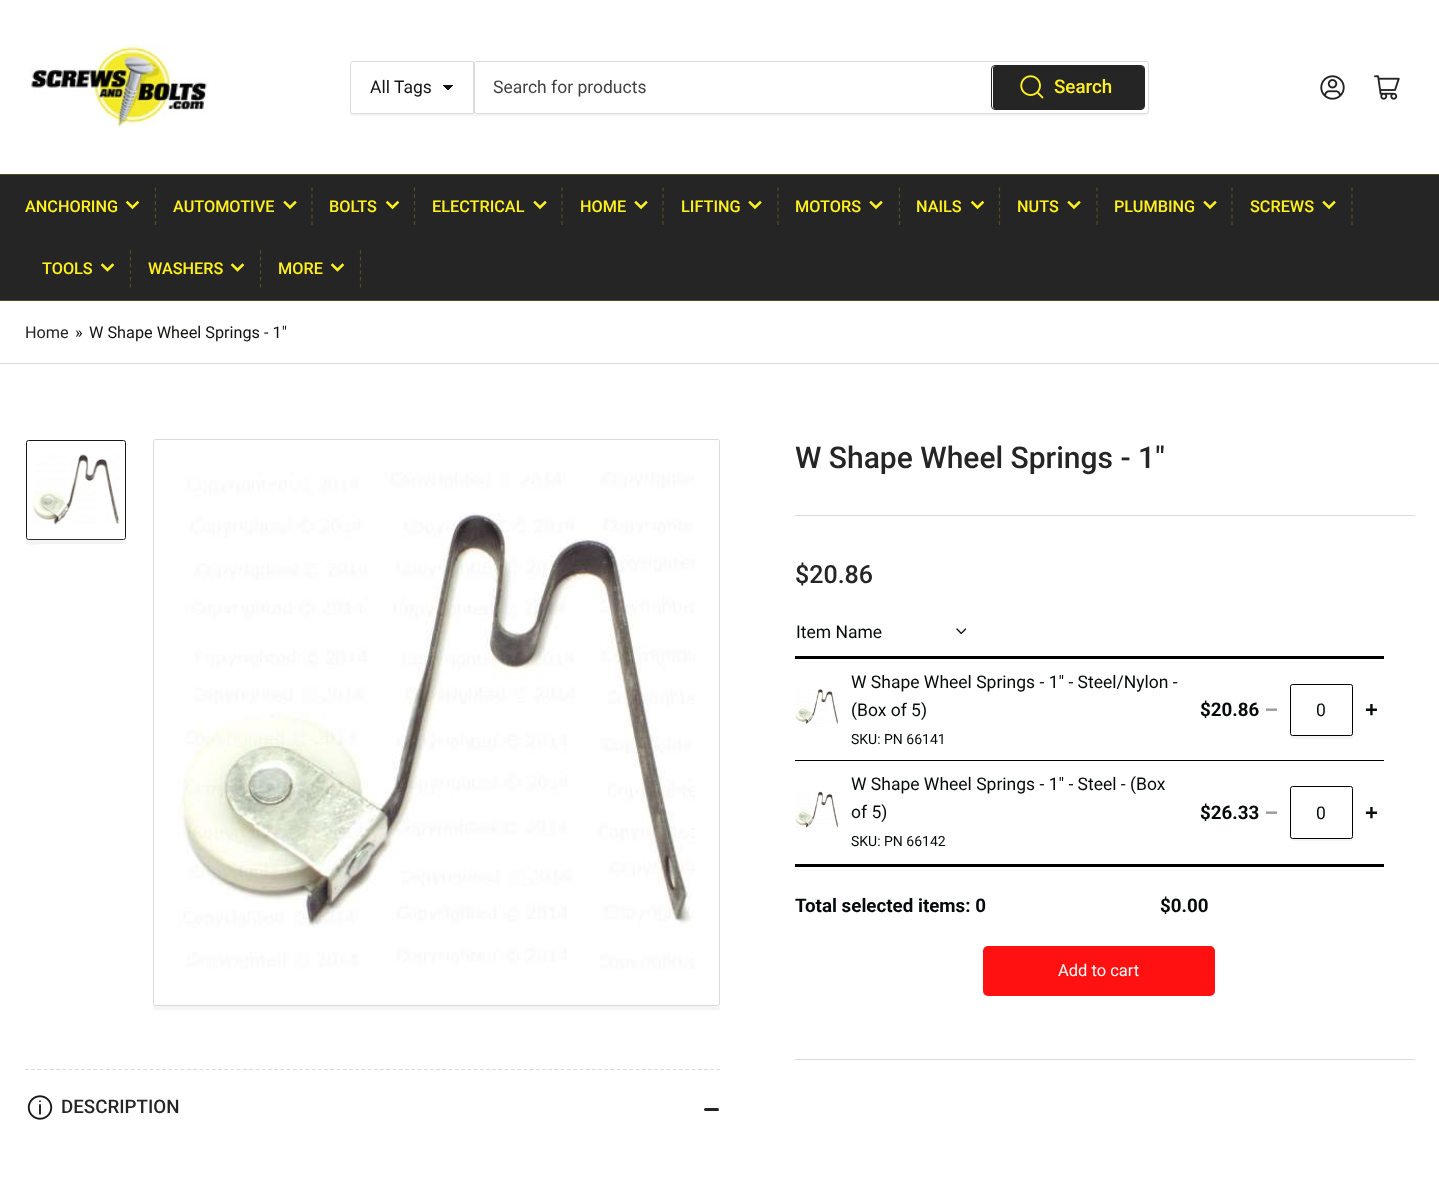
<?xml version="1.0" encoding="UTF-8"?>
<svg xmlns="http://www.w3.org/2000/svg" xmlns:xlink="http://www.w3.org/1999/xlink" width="1439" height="1192">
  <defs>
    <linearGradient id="g1" gradientUnits="userSpaceOnUse" x1="448" y1="84" x2="454" y2="91"><stop offset="0.5" stop-color="#131312" /><stop offset="0.5" stop-color="#ffffff" /></linearGradient>
    <linearGradient id="g2" gradientUnits="userSpaceOnUse" x1="441" y1="91" x2="448" y2="84"><stop offset="0.5" stop-color="#ffffff" /><stop offset="0.5" stop-color="#131312" /></linearGradient>
    <linearGradient id="g3" gradientUnits="userSpaceOnUse" x1="76" y1="579" x2="76" y2="535"><stop offset="0" stop-color="#ffffff" /><stop offset="1" stop-color="#ffffff" stop-opacity="0" /></linearGradient>
  </defs>
  <rect width="100%" height="100%" fill="#ffffff" />
  <image x="30" y="44" width="179" height="83" xlink:href="image1.png" />
  <rect x="350.5" y="61.5" width="123" height="52" rx="2" fill="none" stroke="#dadada" />
  <path d="M 350 111 v 3 c 0 1 1 2 2 2 h 122 v -52 v 50 h -122 c -1 0 -2 -1 -2 -3 z" fill="#dadada" fill-opacity="0.3" />
  <path d="M 352.5 61 h 121.5 v 53 h -121.5 c -1.5 0 -2.5 -1 -2.5 -2.5 v -48 c 0 -1.5 1 -2.5 2.5 -2.5 z" fill="#ffffff" />
  <rect x="448" y="85" width="6" height="5" fill="url(#g1)" />
  <rect x="441" y="85" width="7" height="5" fill="url(#g2)" />
  <path d="M 352.5 61.5 h 121 v 52 h -121 c -1 0 -2 -1 -2 -2 v -48 c 0 -1 1 -2 2 -2 z" fill="none" stroke="#dadada" />
  <path d="M 474 112 c 0 2 0 4 2 4 h 670 c 5 0 3 -10 3 -10 v -41 v 46 c 0 2 -1 3 -3 3 h -670 c -1 0 -2 -1 -2 -2 z" fill="#f4f4f4" />
  <rect x="474.5" y="61.5" width="674" height="52" rx="2" fill="none" stroke="#dadada" />
  <rect x="991.5" y="65.5" width="153" height="44" rx="3.5" fill="none" stroke="#262525" />
  <rect x="993" y="66" width="151" height="43" rx="2.5" fill="#262525" />
  <image x="1020" y="75" width="24" height="24" xlink:href="image2.png" />
  <image x="1320" y="75" width="25" height="25" xlink:href="image3.png" />
  <image x="1374" y="75" width="26" height="25" xlink:href="image4.png" />
  <rect y="175" width="1439" height="125" fill="#262525" />
  <rect y="174" width="1439" height="1" fill="#514e24" />
  <rect y="300" width="1439" height="1" fill="#514e24" />
  <path d="M 137.5 202.5 l -5 5 l -5 -5" fill="none" stroke="#fff01f" stroke-width="2.5" stroke-linecap="square" />
  <path d="M 155.5 187.5 v 37.5" fill="none" stroke="#514e24" stroke-width="1.2" stroke-dasharray="3.75 3" />
  <path d="M 295 202.5 l -5 5 l -5 -5" fill="none" stroke="#fff01f" stroke-width="2.5" stroke-linecap="square" />
  <path d="M 312 187.5 v 37.5" fill="none" stroke="#514e24" stroke-width="1.2" stroke-dasharray="3.75 3" />
  <path d="M 397.5 202.5 l -5 5 l -5 -5" fill="none" stroke="#fff01f" stroke-width="2.5" stroke-linecap="square" />
  <path d="M 414.5 187.5 v 37.5" fill="none" stroke="#514e24" stroke-width="1.2" stroke-dasharray="3.75 3" />
  <path d="M 545 202.5 l -5 5 l -5 -5" fill="none" stroke="#fff01f" stroke-width="2.5" stroke-linecap="square" />
  <path d="M 562 187.5 v 37.5" fill="none" stroke="#514e24" stroke-width="1.2" stroke-dasharray="3.75 3" />
  <path d="M 646 202.5 l -5 5 l -5 -5" fill="none" stroke="#fff01f" stroke-width="2.5" stroke-linecap="square" />
  <path d="M 663 187.5 v 37.5" fill="none" stroke="#514e24" stroke-width="1.2" stroke-dasharray="3.75 3" />
  <path d="M 760 202.5 l -5 5 l -5 -5" fill="none" stroke="#fff01f" stroke-width="2.5" stroke-linecap="square" />
  <path d="M 778 187.5 v 37.5" fill="none" stroke="#514e24" stroke-width="1.2" stroke-dasharray="3.75 3" />
  <path d="M 881 202.5 l -5 5 l -5 -5" fill="none" stroke="#fff01f" stroke-width="2.5" stroke-linecap="square" />
  <path d="M 899.5 187.5 v 37.5" fill="none" stroke="#514e24" stroke-width="1.2" stroke-dasharray="3.75 3" />
  <path d="M 982.5 202.5 l -5 5 l -5 -5" fill="none" stroke="#fff01f" stroke-width="2.5" stroke-linecap="square" />
  <path d="M 999.5 187.5 v 37.5" fill="none" stroke="#514e24" stroke-width="1.2" stroke-dasharray="3.75 3" />
  <path d="M 1079 202.5 l -5 5 l -5 -5" fill="none" stroke="#fff01f" stroke-width="2.5" stroke-linecap="square" />
  <path d="M 1097 187.5 v 37.5" fill="none" stroke="#514e24" stroke-width="1.2" stroke-dasharray="3.75 3" />
  <path d="M 1215 202.5 l -5 5 l -5 -5" fill="none" stroke="#fff01f" stroke-width="2.5" stroke-linecap="square" />
  <path d="M 1232 187.5 v 37.5" fill="none" stroke="#514e24" stroke-width="1.2" stroke-dasharray="3.75 3" />
  <path d="M 1334 202.5 l -5 5 l -5 -5" fill="none" stroke="#fff01f" stroke-width="2.5" stroke-linecap="square" />
  <path d="M 1352 187.5 v 37.5" fill="none" stroke="#514e24" stroke-width="1.2" stroke-dasharray="3.75 3" />
  <path d="M 112.5 265 l -5 5 l -5 -5" fill="none" stroke="#fff01f" stroke-width="2.5" stroke-linecap="square" />
  <path d="M 130.5 250 v 37.5" fill="none" stroke="#514e24" stroke-width="1.2" stroke-dasharray="3.75 3" />
  <path d="M 242.5 265 l -5 5 l -5 -5" fill="none" stroke="#fff01f" stroke-width="2.5" stroke-linecap="square" />
  <path d="M 260.5 250 v 37.5" fill="none" stroke="#514e24" stroke-width="1.2" stroke-dasharray="3.75 3" />
  <path d="M 342.5 265 l -5 5 l -5 -5" fill="none" stroke="#fff01f" stroke-width="2.5" stroke-linecap="square" />
  <path d="M 360.5 250 v 37.5" fill="none" stroke="#514e24" stroke-width="1.2" stroke-dasharray="3.75 3" />
  <rect y="363" width="1439" height="1" fill="#dadada" />
  <path d="M 26 445 v 97 c 0 5 14 2 18 2 h 80 c 2 0 2 -3 2 -5 c 0 0 -1 1 -2 1 h -95 c -2 0 -3 -1 -3 -2 z" fill="#f4f4f4" />
  <rect x="26.5" y="440.5" width="99" height="99" rx="2" fill="none" stroke="#181616" />
  <image x="32" y="454" width="88" height="72" xlink:href="image5.png" />
  <rect x="26" y="536" width="100" height="4" fill="url(#g3)" />
  <path d="M 153 1005 v 3 c 0 1 1 2 3 2 h 562 c 1 0 2 -1 2 -2 v -4 c 0 1 -1 2 -2 2 h -563 z" fill="#f4f4f4" />
  <rect x="153.5" y="439.5" width="566" height="566" rx="2" fill="none" stroke="#dadada" />
  <image x="178" y="472" width="517" height="497" xlink:href="image6.png" />
  <rect x="795" y="515" width="620" height="1" fill="#dadada" />
  <image x="956" y="628" width="10" height="7" xlink:href="image7.png" />
  <rect x="795" y="656" width="589" height="3" fill="#000000" />
  <rect x="795" y="864" width="589" height="3" fill="#000000" />
  <image x="795" y="689" width="43" height="35" xlink:href="image8.png" />
  <path d="M 1290 734 v 2 c 0 2 1 3 2 3 h 58 c 2 0 3 -1 3 -3 v -48 l -1 -1 v 47 c 0 1 -1 2 -2 2 h -58 c -1 0 -2 -1 -2 -2 z" fill="#f4f4f4" />
  <rect x="1290.5" y="684.5" width="62" height="51" rx="2" fill="#ffffff" stroke="#000000" />
  <rect x="795" y="760" width="589" height="1" fill="#000000" />
  <image x="795" y="791" width="43" height="40" xlink:href="image9.png" />
  <path d="M 1290 836 v 2 c 0 2 1 3 2 3 h 58 c 2 0 3 -1 3 -3 v -46 l -1 -2 v 46 c 0 2 -1 3 -2 3 h -58 c -1 0 -2 -1 -2 -3 z" fill="#f4f4f4" />
  <rect x="1290.5" y="786.5" width="62" height="52" rx="2" fill="#ffffff" stroke="#000000" />
  <rect x="983" y="946" width="232" height="50" rx="5" fill="#ff1111" />
  <rect x="795" y="1059" width="620" height="1" fill="#dadada" />
  <path d="M 25 1069.5 h 695" fill="none" stroke="#dadada" stroke-width="1.2" stroke-dasharray="3.75 2.48" />
  <image x="27" y="1095" width="26" height="25" xlink:href="image10.png" />
  <rect x="704" y="1108" width="9" height="3" rx="1.5" fill="#232323" />
  <rect x="709" y="1108" width="10" height="3" rx="1.5" fill="#232323" />
  <text x="370" y="93" style="font-family: Roboto; font-size: 17.5px; fill: #131312">All Tags</text>
  <text x="493" y="93" style="font-family: Roboto; font-size: 17.5px; fill: #424241">Search for products</text>
  <text x="1054" y="93" style="font-family: Roboto; font-size: 18.75px; font-weight: 500; fill: #fff01f">Search</text>
  <text x="25" y="212" style="font-family: Roboto; font-size: 16.25px; font-weight: 500; fill: #fff01f">ANCHORING</text>
  <text x="173" y="212" style="font-family: Roboto; font-size: 16.25px; font-weight: 500; fill: #fff01f">AUTOMOTIVE</text>
  <text x="329" y="212" style="font-family: Roboto; font-size: 16.25px; font-weight: 500; fill: #fff01f">BOLTS</text>
  <text x="432" y="212" style="font-family: Roboto; font-size: 16.25px; font-weight: 500; fill: #fff01f">ELECTRICAL</text>
  <text x="580" y="212" style="font-family: Roboto; font-size: 16.25px; font-weight: 500; fill: #fff01f">HOME</text>
  <text x="681" y="212" style="font-family: Roboto; font-size: 16.25px; font-weight: 500; fill: #fff01f">LIFTING</text>
  <text x="795" y="212" style="font-family: Roboto; font-size: 16.25px; font-weight: 500; fill: #fff01f">MOTORS</text>
  <text x="916" y="212" style="font-family: Roboto; font-size: 16.25px; font-weight: 500; fill: #fff01f">NAILS</text>
  <text x="1017" y="212" style="font-family: Roboto; font-size: 16.25px; font-weight: 500; fill: #fff01f">NUTS</text>
  <text x="1114" y="212" style="font-family: Roboto; font-size: 16.25px; font-weight: 500; fill: #fff01f">PLUMBING</text>
  <text x="1250" y="212" style="font-family: Roboto; font-size: 16.25px; font-weight: 500; fill: #fff01f">SCREWS</text>
  <text x="42" y="274" style="font-family: Roboto; font-size: 16.25px; font-weight: 500; fill: #fff01f">TOOLS</text>
  <text x="148" y="274" style="font-family: Roboto; font-size: 16.25px; font-weight: 500; fill: #fff01f">WASHERS</text>
  <text x="278" y="274" style="font-family: Roboto; font-size: 16.25px; font-weight: 500; fill: #fff01f">MORE</text>
  <text x="25" y="338" style="font-family: Roboto; font-size: 16.25px; fill: #262525">Home</text>
  <text x="75" y="338" style="font-family: Roboto; font-size: 16.25px; fill: #131312">»</text>
  <text x="89" y="338" style="font-family: Roboto; font-size: 16.25px; fill: #131312">W Shape Wheel Springs - 1"</text>
  <text x="795" y="468" style="font-family: Roboto; font-size: 30px; font-weight: 500; fill: #262525">W Shape Wheel Springs - 1"</text>
  <text x="795" y="583" style="font-family: Roboto; font-size: 25px; font-weight: 500; fill: #262525">$20.86</text>
  <text x="796" y="638" style="font-family: Roboto; font-size: 17.5px; fill: #060a0a">Item Name</text>
  <text x="851" y="688" style="font-family: Roboto; font-size: 17.5px; fill: #060a0a">W Shape Wheel Springs - 1" - Steel/Nylon -</text>
  <text x="851" y="716" style="font-family: Roboto; font-size: 17.5px; fill: #060a0a">(Box of 5)</text>
  <text x="851" y="744" style="font-family: Roboto; font-size: 14px; fill: #060a0a">SKU: PN 66141</text>
  <text x="1200" y="716" style="font-family: Roboto; font-size: 18.75px; font-weight: bold; fill: #060a0a">$20.86</text>
  <text x="1265" y="717" style="font-family: Liberation Sans; font-size: 22px; font-weight: bold; fill: #9b9d9d">−</text>
  <text x="1316" y="716" style="font-family: Roboto; font-size: 17.5px; fill: #060a0a">0</text>
  <text x="1365" y="717" style="font-family: Liberation Sans; font-size: 22px; font-weight: bold; fill: #060a0a">+</text>
  <text x="851" y="790" style="font-family: Roboto; font-size: 17.5px; fill: #060a0a">W Shape Wheel Springs - 1" - Steel - (Box</text>
  <text x="851" y="818" style="font-family: Roboto; font-size: 17.5px; fill: #060a0a">of 5)</text>
  <text x="851" y="846" style="font-family: Roboto; font-size: 14px; fill: #060a0a">SKU: PN 66142</text>
  <text x="1200" y="819" style="font-family: Roboto; font-size: 18.75px; font-weight: bold; fill: #060a0a">$26.33</text>
  <text x="1265" y="820" style="font-family: Liberation Sans; font-size: 22px; font-weight: bold; fill: #9b9d9d">−</text>
  <text x="1316" y="819" style="font-family: Roboto; font-size: 17.5px; fill: #060a0a">0</text>
  <text x="1365" y="820" style="font-family: Liberation Sans; font-size: 22px; font-weight: bold; fill: #060a0a">+</text>
  <text x="795" y="912" style="font-family: Roboto; font-size: 18.75px; font-weight: bold; fill: #060a0a">Total selected items: 0</text>
  <text x="1160" y="912" style="font-family: Roboto; font-size: 18.75px; font-weight: bold; fill: #060a0a">$0.00</text>
  <text x="1058" y="976" style="font-family: Roboto; font-size: 16.5px; fill: #ffffff">Add to cart</text>
  <text x="61" y="1113" style="font-family: Roboto; font-size: 18.75px; font-weight: 500; fill: #262525">DESCRIPTION</text>
</svg>
